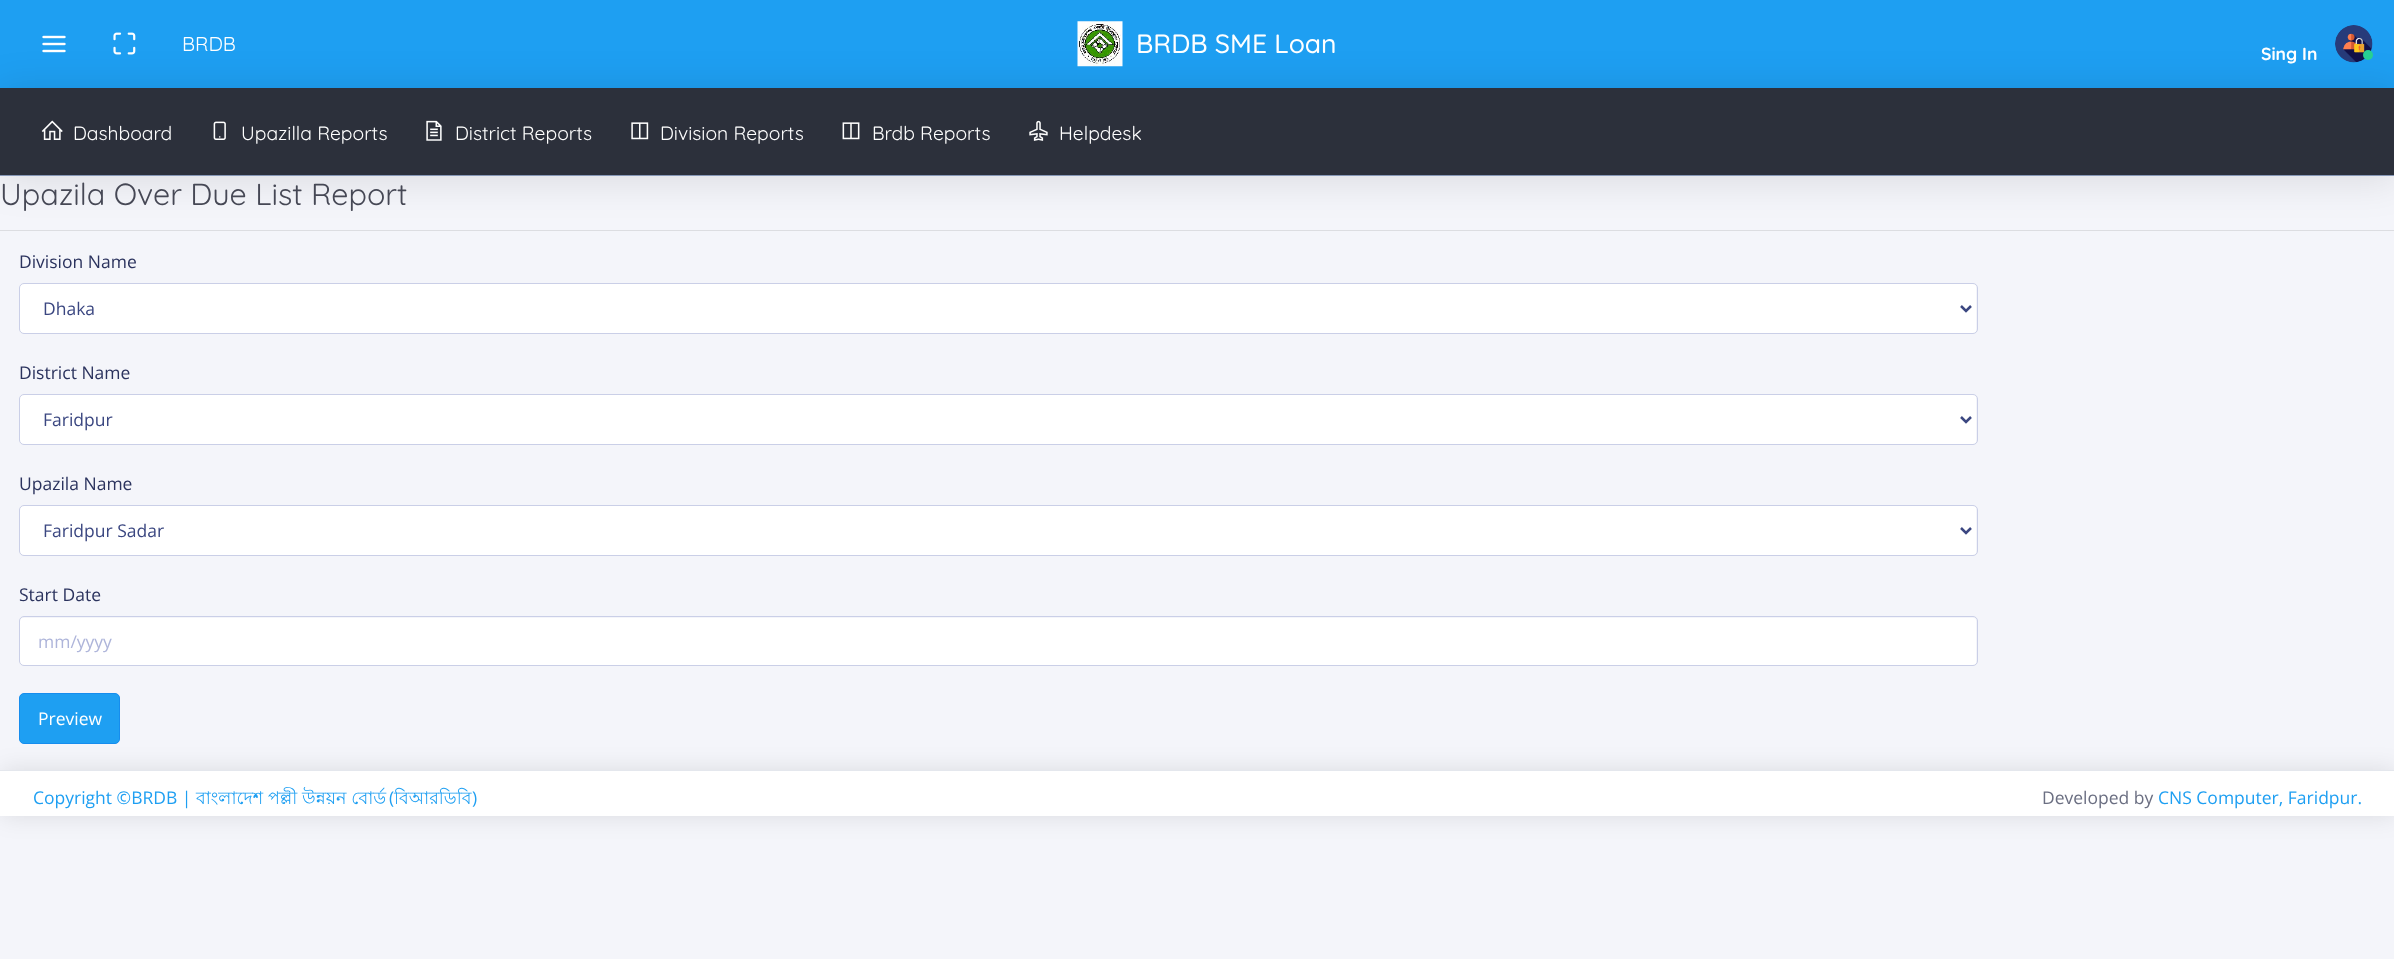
<?xml version="1.0" encoding="UTF-8"?>
<svg xmlns="http://www.w3.org/2000/svg" xmlns:xlink="http://www.w3.org/1999/xlink" width="2394" height="959">
  <rect width="100%" height="100%" fill="#f4f5fa" />
  <rect width="2394" height="88" fill="#1e9ff2" />
  <image x="1077" y="21" width="46" height="46" xlink:href="image1.png" />
  <image x="42" y="35" width="24" height="18" xlink:href="image2.png" />
  <image x="113" y="32" width="23" height="23" xlink:href="image3.png" />
  <image x="2335" y="25" width="38" height="38" xlink:href="image4.png" />
  <circle cx="2368" cy="55" r="5" fill="#28d094" />
  <rect y="230" width="2394" height="1" fill="#dcdde1" />
  <rect x="-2" y="88" width="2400" height="93" fill="#000000" fill-opacity="0.1" filter="blur(19px)" />
  <rect y="88" width="2394" height="87" fill="#2c303b" />
  <rect y="175" width="2394" height="1" fill="#8596b5" />
  <image x="41" y="120" width="22" height="20" xlink:href="image5.png" />
  <image x="213" y="121" width="13" height="19" xlink:href="image6.png" />
  <image x="426" y="120" width="16" height="21" xlink:href="image7.png" />
  <image x="631" y="122" width="18" height="18" xlink:href="image8.png" />
  <image x="842" y="122" width="18" height="18" xlink:href="image9.png" />
  <image x="1029" y="120" width="19" height="21" xlink:href="image10.png" />
  <rect x="20" y="284" width="1956" height="49" rx="3" fill="#ffffff" />
  <rect x="19.5" y="283.5" width="1958" height="50" rx="4.5" fill="none" stroke="#cacfe7" />
  <path d="M 1961 306 l 5 5 l 5 -5" fill="none" stroke="#3b4781" stroke-width="2.5" />
  <rect x="20" y="395" width="1956" height="49" rx="3" fill="#ffffff" />
  <rect x="19.5" y="394.5" width="1958" height="50" rx="4.5" fill="none" stroke="#cacfe7" />
  <path d="M 1961 417 l 5 5 l 5 -5" fill="none" stroke="#3b4781" stroke-width="2.5" />
  <rect x="20" y="506" width="1956" height="49" rx="3" fill="#ffffff" />
  <rect x="19.5" y="505.5" width="1958" height="50" rx="4.5" fill="none" stroke="#cacfe7" />
  <path d="M 1961 528 l 5 5 l 5 -5" fill="none" stroke="#3b4781" stroke-width="2.5" />
  <rect x="20" y="618" width="1956" height="47" rx="3" fill="#ffffff" />
  <rect x="19.5" y="616.5" width="1958" height="49" rx="4.5" fill="none" stroke="#cacfe7" />
  <rect x="1" y="770" width="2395" height="46" fill="#000000" fill-opacity="0.1" filter="blur(12.5px)" />
  <rect x="19.5" y="693.5" width="100" height="50" rx="4.5" fill="#1e9ff2" stroke="#168dee" />
  <rect y="771" width="2394" height="45" fill="#ffffff" />
  <rect y="770" width="2394" height="1" fill="#e4e7ed" />
  <text x="1136" y="53" style="font-family: Quicksand; font-size: 26.5px; font-weight: 500; fill: #ffffff">BRDB SME Loan</text>
  <text x="182" y="51" style="font-family: Quicksand; font-size: 20px; fill: #ffffff">BRDB</text>
  <text x="2261" y="60" style="font-family: Quicksand; font-size: 17.5px; font-weight: bold; fill: #ffffff">Sing In</text>
  <text x="73" y="140" style="font-family: Quicksand; font-size: 19.25px; fill: #ffffff">Dashboard</text>
  <text x="241" y="140" style="font-family: Quicksand; font-size: 19.25px; fill: #ffffff">Upazilla Reports</text>
  <text x="455" y="140" style="font-family: Quicksand; font-size: 19.25px; fill: #ffffff">District Reports</text>
  <text x="660" y="140" style="font-family: Quicksand; font-size: 19.25px; fill: #ffffff">Division Reports</text>
  <text x="872" y="140" style="font-family: Quicksand; font-size: 19.25px; fill: #ffffff">Brdb Reports</text>
  <text x="1059" y="140" style="font-family: Quicksand; font-size: 19.25px; fill: #ffffff">Helpdesk</text>
  <text x="0" y="205" style="font-family: Quicksand; font-size: 30.5px; fill: #464855">Upazila Over Due List Report</text>
  <text x="19" y="268" style="font-family: Open Sans; font-size: 17.5px; fill: #2b335e">Division Name</text>
  <text x="43" y="315" style="font-family: Open Sans; font-size: 17.5px; fill: #3b4781">Dhaka</text>
  <text x="19" y="379" style="font-family: Open Sans; font-size: 17.5px; fill: #2b335e">District Name</text>
  <text x="43" y="426" style="font-family: Open Sans; font-size: 17.5px; fill: #3b4781">Faridpur</text>
  <text x="19" y="490" style="font-family: Open Sans; font-size: 17.5px; fill: #2b335e">Upazila Name</text>
  <text x="43" y="537" style="font-family: Open Sans; font-size: 17.5px; fill: #3b4781">Faridpur Sadar</text>
  <text x="19" y="601" style="font-family: Open Sans; font-size: 17.5px; fill: #2b335e">Start Date</text>
  <text x="38" y="648" style="font-family: Open Sans; font-size: 17.5px; fill: #aeb5da">mm/yyyy</text>
  <text x="38" y="725" style="font-family: Open Sans; font-size: 17.5px; fill: #ffffff">Preview</text>
  <text x="33" y="804" style="font-family: Open Sans; font-size: 17.5px; fill: #1e9ff2">Copyright ©BRDB |</text>
  <text x="196" y="804" style="font-family: Lohit Bengali; font-size: 17.5px; fill: #1e9ff2">বাংলাদেশ পল্লী উন্নয়ন বোর্ড</text>
  <text x="389" y="804" style="font-family: Open Sans; font-size: 17.5px; fill: #1e9ff2">(</text>
  <text x="394" y="804" style="font-family: Lohit Bengali; font-size: 17.5px; fill: #1e9ff2">বিআরডিবি</text>
  <text x="472" y="804" style="font-family: Open Sans; font-size: 17.5px; fill: #1e9ff2">)</text>
  <text x="2042" y="804" style="font-family: Open Sans; font-size: 17.5px; fill: #6b6f82">Developed by</text>
  <text x="2158" y="804" style="font-family: Open Sans; font-size: 17.5px; fill: #1e9ff2">CNS Computer, Faridpur.</text>
</svg>
